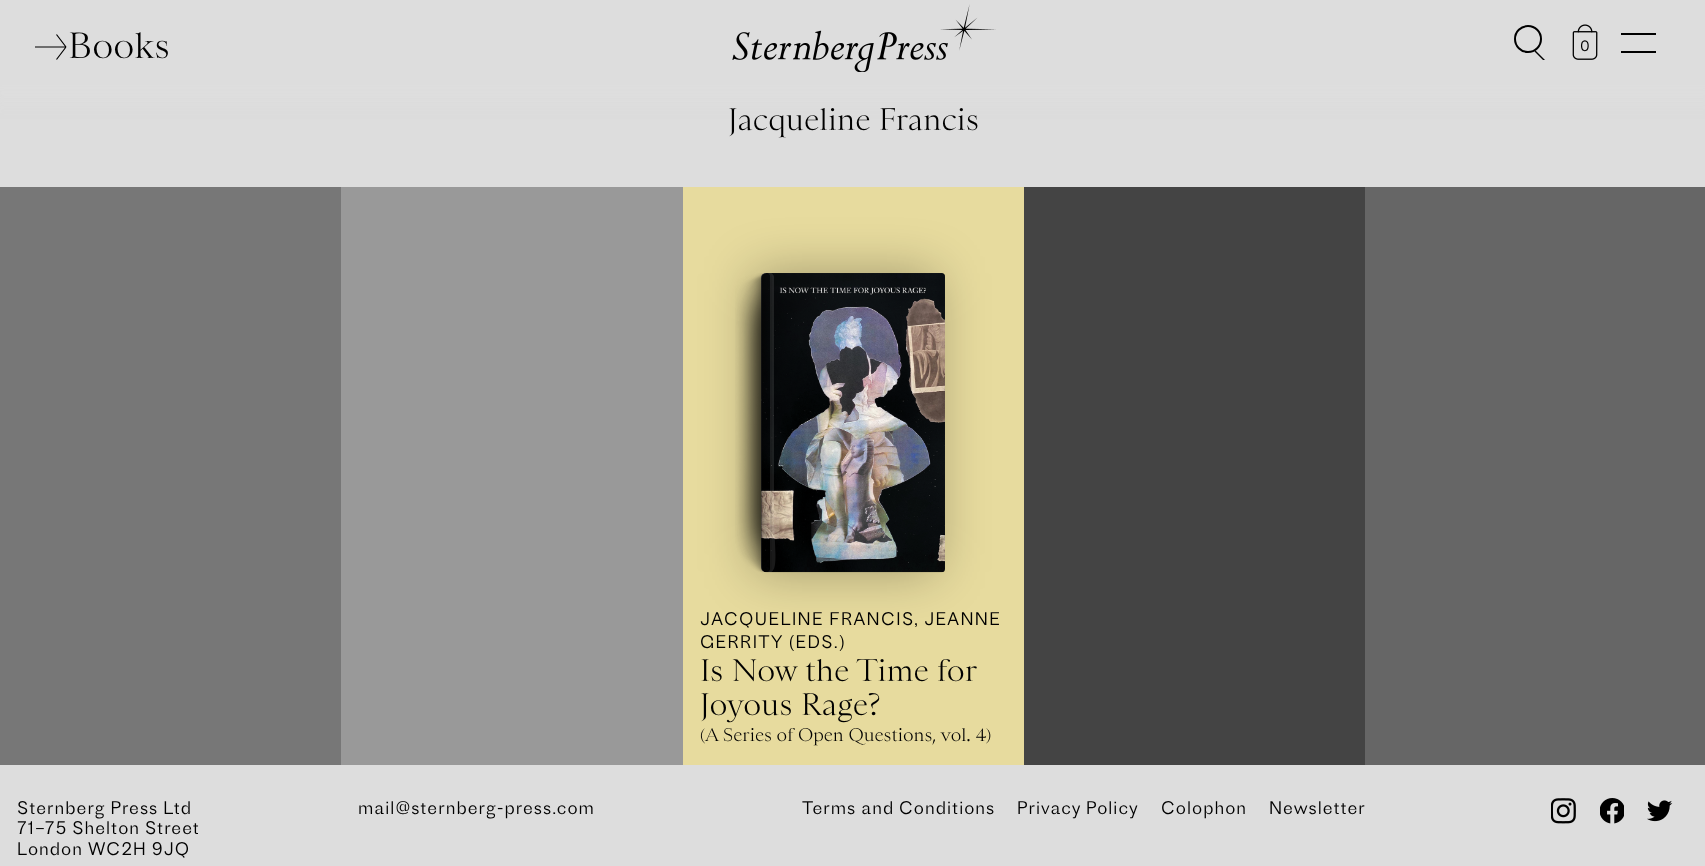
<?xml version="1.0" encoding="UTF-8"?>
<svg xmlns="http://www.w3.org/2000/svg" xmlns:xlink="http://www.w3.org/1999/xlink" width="1705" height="866">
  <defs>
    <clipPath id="clip1"><rect x="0" y="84" width="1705" height="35" /></clipPath>
    <clipPath id="clip2"><rect x="1510" y="26" width="35" height="34" /></clipPath>
    <linearGradient id="g1" gradientUnits="userSpaceOnUse" x1="770" y1="423" x2="761" y2="423"><stop offset="0" stop-color="#000000" stop-opacity="0" /><stop offset="0.9" stop-color="#000000" stop-opacity="0.3" /></linearGradient>
  </defs>
  <rect width="100%" height="100%" fill="#dddddd" />
  <g clip-path="url(#clip1)">
    <rect x="-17" y="-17" width="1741" height="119" fill="#dddddd" filter="blur(8.5px)" />
  </g>
  <path d="M 35 47 h 31 m -9.5 -12.5 l 9.5 12.5 m -9.5 12.5 l 9.5 -12.5" fill="none" stroke="#000000" stroke-width="1.2" />
  <image x="732" y="4" width="264" height="68" xlink:href="image1.png" />
  <g clip-path="url(#clip2)">
    <path d="M 1535 51 l 112 112" fill="none" stroke="#000000" stroke-width="1.4" />
  </g>
  <circle cx="1528" cy="39" r="13" fill="none" stroke="#000000" stroke-width="2" />
  <image x="1572" y="24" width="26" height="36" xlink:href="image2.png" />
  <rect x="1621" y="33" width="35" height="2" fill="#000000" />
  <rect x="1621" y="51" width="35" height="2" fill="#000000" />
  <rect y="187" width="341" height="578" fill="#777777" />
  <rect x="341" y="187" width="342" height="578" fill="#999999" />
  <rect x="1024" y="187" width="341" height="578" fill="#444444" />
  <rect x="1365" y="187" width="340" height="578" fill="#666666" />
  <rect x="683" y="187" width="341" height="578" fill="#e7db9e" />
  <rect x="753" y="273" width="183" height="299" rx="5" fill="#000000" fill-opacity="0.3" filter="blur(25.5px)" />
  <path d="M 766 273 h 175 c 2 0 4 2 4 4 v 291 c 0 2 -2 4 -4 4 h -175 c -3 0 -5 -2 -5 -5 v -289 c 0 -3 2 -5 5 -5 z" fill="#808080" />
  <image x="735" y="273" width="28" height="300" xlink:href="image3.png" />
  <image x="761" y="273" width="184" height="300" xlink:href="image4.png" />
  <path d="M 770 273 h -2 c 1 1 2 2 2 3 v 293 c 0 1 -1 2 -2 3 c 12 4 6 -30 6 -52 v -243 c 0 -2 -2 -4 -4 -4 z" fill="#ffffff" fill-opacity="0.1" />
  <path d="M 768 273 h -1 c 2 0 3 2 3 3 v 293 c 0 1 -1 2 -2 3 c 2 0 4 -2 4 -4 v -291 c 0 -2 -2 -4 -4 -4 z" fill="#000000" fill-opacity="0.1" />
  <path d="M 766 273 c 2 0 4 2 4 4 v 291 c 0 2 -2 4 -4 4 c -3 0 -5 -2 -5 -5 v -289 c 0 -3 2 -5 5 -5 z" fill="url(#g1)" />
  <image x="1551" y="798" width="25" height="26" xlink:href="image5.png" />
  <image x="1600" y="798" width="24" height="26" xlink:href="image6.png" />
  <image x="1647" y="800" width="26" height="22" xlink:href="image7.png" />
  <text x="68" y="58" style="font-family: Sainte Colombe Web; font-size: 34px; font-weight: 300; fill: #000000">Books</text>
  <text x="1580" y="51" style="font-family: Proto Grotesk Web; font-size: 14px; font-weight: 300; letter-spacing: 1px; fill: #000000">0</text>
  <text x="728" y="130" style="font-family: Sainte Colombe Web; font-size: 29px; font-weight: 300; fill: #000000">Jacqueline Francis</text>
  <text x="700" y="625" style="font-family: Proto Grotesk Web; font-size: 17.1px; font-weight: 300; letter-spacing: 1.35px; fill: #000000">JACQUELINE FRANCIS, JEANNE</text>
  <text x="700" y="648" style="font-family: Proto Grotesk Web; font-size: 17.1px; font-weight: 300; letter-spacing: 1.35px; fill: #000000">GERRITY (EDS.)</text>
  <text x="700" y="681" style="font-family: Sainte Colombe Web; font-size: 29px; font-weight: 300; fill: #000000">Is Now the Time for</text>
  <text x="700" y="715" style="font-family: Sainte Colombe Web; font-size: 29px; font-weight: 300; fill: #000000">Joyous Rage?</text>
  <text x="700" y="741" style="font-family: Sainte Colombe Web; font-size: 17.1px; font-weight: 300; fill: #000000">(A Series of Open Questions, vol. 4)</text>
  <text x="17" y="814" style="font-family: Proto Grotesk Web; font-size: 17.1px; font-weight: 300; letter-spacing: 1px; fill: #000000">Sternberg Press Ltd</text>
  <text x="17" y="834" style="font-family: Proto Grotesk Web; font-size: 17.1px; font-weight: 300; letter-spacing: 1px; fill: #000000">71–75 Shelton Street</text>
  <text x="17" y="855" style="font-family: Proto Grotesk Web; font-size: 17.1px; font-weight: 300; letter-spacing: 1px; fill: #000000">London WC2H 9JQ</text>
  <text x="358" y="814" style="font-family: Proto Grotesk Web; font-size: 17.1px; font-weight: 300; letter-spacing: 1px; fill: #000000">mail@sternberg-press.com</text>
  <text x="802" y="814" style="font-family: Proto Grotesk Web; font-size: 17.1px; font-weight: 300; letter-spacing: 1px; fill: #000000">Terms and Conditions</text>
  <text x="1017" y="814" style="font-family: Proto Grotesk Web; font-size: 17.1px; font-weight: 300; letter-spacing: 1px; fill: #000000">Privacy Policy</text>
  <text x="1161" y="814" style="font-family: Proto Grotesk Web; font-size: 17.1px; font-weight: 300; letter-spacing: 1px; fill: #000000">Colophon</text>
  <text x="1269" y="814" style="font-family: Proto Grotesk Web; font-size: 17.1px; font-weight: 300; letter-spacing: 1px; fill: #000000">Newsletter</text>
</svg>
